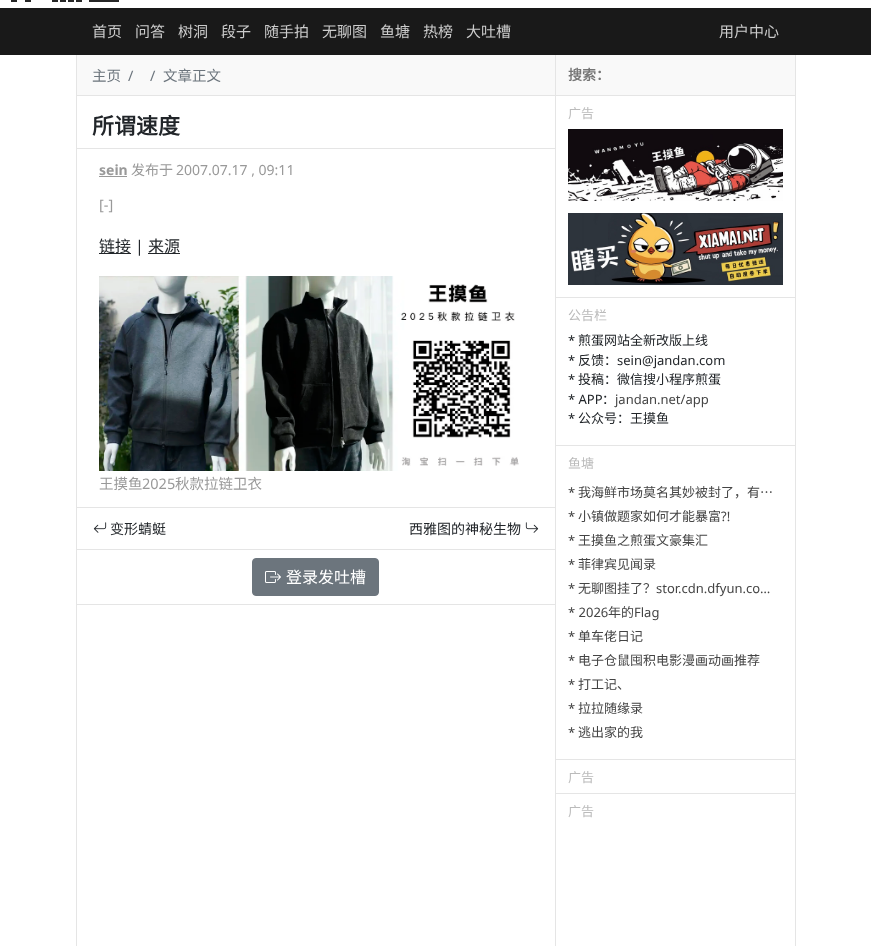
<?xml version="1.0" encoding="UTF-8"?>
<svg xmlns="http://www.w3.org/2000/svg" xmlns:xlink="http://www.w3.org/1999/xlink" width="871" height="946">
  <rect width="100%" height="100%" fill="#ffffff" />
  <image x="11" y="0" width="108" height="2" xlink:href="image1.png" />
  <rect y="8" width="871" height="47" fill="#191919" />
  <rect x="555" y="55" width="1" height="891" fill="#e5e5e5" />
  <rect x="76" y="55" width="1" height="891" fill="#e5e5e5" />
  <rect x="77" y="55" width="478" height="40" fill="#f9f9f9" />
  <rect x="77" y="95" width="478" height="1" fill="#e5e5e5" />
  <rect x="77" y="148" width="478" height="1" fill="#e5e5e5" />
  <rect x="99" y="176" width="28" height="1" fill="#999999" />
  <rect x="99" y="253" width="32" height="1" fill="#212529" />
  <rect x="148" y="253" width="32" height="1" fill="#212529" />
  <image x="99" y="276" width="420" height="195" xlink:href="image2.png" />
  <rect x="77" y="507" width="478" height="1" fill="#e5e5e5" />
  <image x="93" y="522" width="14" height="11" xlink:href="image3.png" />
  <image x="525" y="522" width="14" height="11" xlink:href="image4.png" />
  <rect x="77" y="549" width="478" height="1" fill="#e5e5e5" />
  <rect x="77" y="604" width="478" height="1" fill="#e5e5e5" />
  <rect x="252.5" y="558.5" width="126" height="37" rx="3.5" fill="#6c757d" stroke="#6c757d" />
  <image x="265" y="571" width="16" height="12" xlink:href="image5.png" />
  <rect x="795" y="55" width="1" height="891" fill="#e5e5e5" />
  <rect x="556" y="55" width="239" height="40" fill="#f9f9f9" />
  <rect x="556" y="95" width="239" height="1" fill="#e5e5e5" />
  <image x="568" y="129" width="215" height="72" xlink:href="image6.png" />
  <image x="568" y="213" width="215" height="72" xlink:href="image7.png" />
  <rect x="556" y="297" width="239" height="1" fill="#e5e5e5" />
  <rect x="556" y="445" width="239" height="1" fill="#e5e5e5" />
  <rect x="556" y="759" width="239" height="1" fill="#e5e5e5" />
  <rect x="556" y="793" width="239" height="1" fill="#e5e5e5" />
  <text x="92" y="37" style="font-family: Noto Sans CJK SC; font-size: 15px; fill: #cccccc">首页</text>
  <text x="135" y="37" style="font-family: Noto Sans CJK SC; font-size: 15px; fill: #cccccc">问答</text>
  <text x="178" y="37" style="font-family: Noto Sans CJK SC; font-size: 15px; fill: #cccccc">树洞</text>
  <text x="221" y="37" style="font-family: Noto Sans CJK SC; font-size: 15px; fill: #cccccc">段子</text>
  <text x="264" y="37" style="font-family: Noto Sans CJK SC; font-size: 15px; fill: #cccccc">随手拍</text>
  <text x="322" y="37" style="font-family: Noto Sans CJK SC; font-size: 15px; fill: #cccccc">无聊图</text>
  <text x="380" y="37" style="font-family: Noto Sans CJK SC; font-size: 15px; fill: #cccccc">鱼塘</text>
  <text x="423" y="37" style="font-family: Noto Sans CJK SC; font-size: 15px; fill: #cccccc">热榜</text>
  <text x="466" y="37" style="font-family: Noto Sans CJK SC; font-size: 15px; fill: #cccccc">大吐槽</text>
  <text x="719" y="37" style="font-family: Noto Sans CJK SC; font-size: 15px; fill: #cccccc">用户中心</text>
  <text x="92" y="81" style="font-family: Noto Sans CJK SC; font-size: 14.5px; fill: #6c757d">主页</text>
  <text x="128" y="81" style="font-family: Noto Sans; font-size: 14.5px; fill: #6c757d">/</text>
  <text x="150" y="81" style="font-family: Noto Sans; font-size: 14.5px; fill: #6c757d">/</text>
  <text x="163" y="81" style="font-family: Noto Sans CJK SC; font-size: 14.5px; fill: #6c757d">文章正文</text>
  <text x="92" y="134" style="font-family: Noto Sans CJK SC; font-size: 22px; font-weight: bold; fill: #212529">所谓速度</text>
  <text x="99" y="175" style="font-family: Noto Sans; font-size: 14px; font-weight: bold; fill: #999999">sein</text>
  <text x="131" y="175" style="font-family: Noto Sans CJK SC; font-size: 14px; fill: #999999">发布于</text>
  <text x="176" y="175" style="font-family: Noto Sans; font-size: 14px; fill: #999999">2007.07.17 , 09:11</text>
  <text x="99" y="210" style="font-family: Noto Sans; font-size: 14.5px; fill: #999999">[-]</text>
  <text x="99" y="252" style="font-family: Noto Sans CJK SC; font-size: 16px; fill: #212529">链接</text>
  <text x="135" y="252" style="font-family: Noto Sans; font-size: 16px; fill: #212529">|</text>
  <text x="148" y="252" style="font-family: Noto Sans CJK SC; font-size: 16px; fill: #212529">来源</text>
  <text x="99" y="489" style="font-family: Noto Sans CJK SC; font-size: 14.5px; fill: #999999">王摸鱼</text>
  <text x="142" y="489" style="font-family: Noto Sans; font-size: 14.5px; fill: #999999">2025</text>
  <text x="175" y="489" style="font-family: Noto Sans CJK SC; font-size: 14.5px; fill: #999999">秋款拉链卫衣</text>
  <text x="110" y="534" style="font-family: Noto Sans CJK SC; font-size: 14px; fill: #212529">变形蜻蜓</text>
  <text x="409" y="534" style="font-family: Noto Sans CJK SC; font-size: 14px; fill: #212529">西雅图的神秘生物</text>
  <text x="286" y="583" style="font-family: Noto Sans CJK SC; font-size: 16px; fill: #ffffff">登录发吐槽</text>
  <text x="568" y="80" style="font-family: Noto Sans CJK SC; font-size: 14px; font-weight: bold; fill: #757575">搜索：</text>
  <text x="568" y="118" style="font-family: Noto Sans CJK SC; font-size: 13px; fill: #bbbbbb">广告</text>
  <text x="568" y="320" style="font-family: Noto Sans CJK SC; font-size: 13px; fill: #bbbbbb">公告栏</text>
  <text x="568" y="345" style="font-family: Noto Sans; font-size: 13px; fill: #212529">*</text>
  <text x="578" y="345" style="font-family: Noto Sans CJK SC; font-size: 13px; fill: #212529">煎蛋网站全新改版上线</text>
  <text x="568" y="365" style="font-family: Noto Sans; font-size: 13px; fill: #212529">*</text>
  <text x="578" y="365" style="font-family: Noto Sans CJK SC; font-size: 13px; fill: #212529">反馈：</text>
  <text x="617" y="365" style="font-family: Noto Sans; font-size: 13px; fill: #212529">sein@jandan.com</text>
  <text x="568" y="384" style="font-family: Noto Sans; font-size: 13px; fill: #212529">*</text>
  <text x="578" y="384" style="font-family: Noto Sans CJK SC; font-size: 13px; fill: #212529">投稿：微信搜小程序煎蛋</text>
  <text x="568" y="404" style="font-family: Noto Sans; font-size: 13px; fill: #212529">* APP</text>
  <text x="602" y="404" style="font-family: Noto Sans CJK SC; font-size: 13px; fill: #212529">：</text>
  <text x="615" y="404" style="font-family: Noto Sans; font-size: 13px; fill: #444444">jandan.net/app</text>
  <text x="568" y="423" style="font-family: Noto Sans; font-size: 13px; fill: #212529">*</text>
  <text x="578" y="423" style="font-family: Noto Sans CJK SC; font-size: 13px; fill: #212529">公众号：王摸鱼</text>
  <text x="568" y="468" style="font-family: Noto Sans CJK SC; font-size: 13px; fill: #bbbbbb">鱼塘</text>
  <text x="568" y="497" style="font-family: Noto Sans; font-size: 13px; fill: #444444">*</text>
  <text x="578" y="497" style="font-family: Noto Sans CJK SC; font-size: 13px; fill: #444444">我海鲜市场莫名其妙被封了，有…</text>
  <text x="568" y="521" style="font-family: Noto Sans; font-size: 13px; fill: #444444">*</text>
  <text x="578" y="521" style="font-family: Noto Sans CJK SC; font-size: 13px; fill: #444444">小镇做题家如何才能暴富</text>
  <text x="721" y="521" style="font-family: Noto Sans; font-size: 13px; fill: #444444">?!</text>
  <text x="568" y="545" style="font-family: Noto Sans; font-size: 13px; fill: #444444">*</text>
  <text x="578" y="545" style="font-family: Noto Sans CJK SC; font-size: 13px; fill: #444444">王摸鱼之煎蛋文豪集汇</text>
  <text x="568" y="569" style="font-family: Noto Sans; font-size: 13px; fill: #444444">*</text>
  <text x="578" y="569" style="font-family: Noto Sans CJK SC; font-size: 13px; fill: #444444">菲律宾见闻录</text>
  <text x="568" y="593" style="font-family: Noto Sans; font-size: 13px; fill: #444444">*</text>
  <text x="578" y="593" style="font-family: Noto Sans CJK SC; font-size: 13px; fill: #444444">无聊图挂了？</text>
  <text x="656" y="593" style="font-family: Noto Sans; font-size: 13px; fill: #444444">stor.cdn.dfyun.co…</text>
  <text x="568" y="617" style="font-family: Noto Sans; font-size: 13px; fill: #444444">* 2026</text>
  <text x="608" y="617" style="font-family: Noto Sans CJK SC; font-size: 13px; fill: #444444">年的</text>
  <text x="634" y="617" style="font-family: Noto Sans; font-size: 13px; fill: #444444">Flag</text>
  <text x="568" y="641" style="font-family: Noto Sans; font-size: 13px; fill: #444444">*</text>
  <text x="578" y="641" style="font-family: Noto Sans CJK SC; font-size: 13px; fill: #444444">单车佬日记</text>
  <text x="568" y="665" style="font-family: Noto Sans; font-size: 13px; fill: #444444">*</text>
  <text x="578" y="665" style="font-family: Noto Sans CJK SC; font-size: 13px; fill: #444444">电子仓鼠囤积电影漫画动画推荐</text>
  <text x="568" y="689" style="font-family: Noto Sans; font-size: 13px; fill: #444444">*</text>
  <text x="578" y="689" style="font-family: Noto Sans CJK SC; font-size: 13px; fill: #444444">打工记、</text>
  <text x="568" y="713" style="font-family: Noto Sans; font-size: 13px; fill: #444444">*</text>
  <text x="578" y="713" style="font-family: Noto Sans CJK SC; font-size: 13px; fill: #444444">拉拉随缘录</text>
  <text x="568" y="737" style="font-family: Noto Sans; font-size: 13px; fill: #444444">*</text>
  <text x="578" y="737" style="font-family: Noto Sans CJK SC; font-size: 13px; fill: #444444">逃出家的我</text>
  <text x="568" y="782" style="font-family: Noto Sans CJK SC; font-size: 13px; fill: #bbbbbb">广告</text>
  <text x="568" y="816" style="font-family: Noto Sans CJK SC; font-size: 13px; fill: #bbbbbb">广告</text>
</svg>
